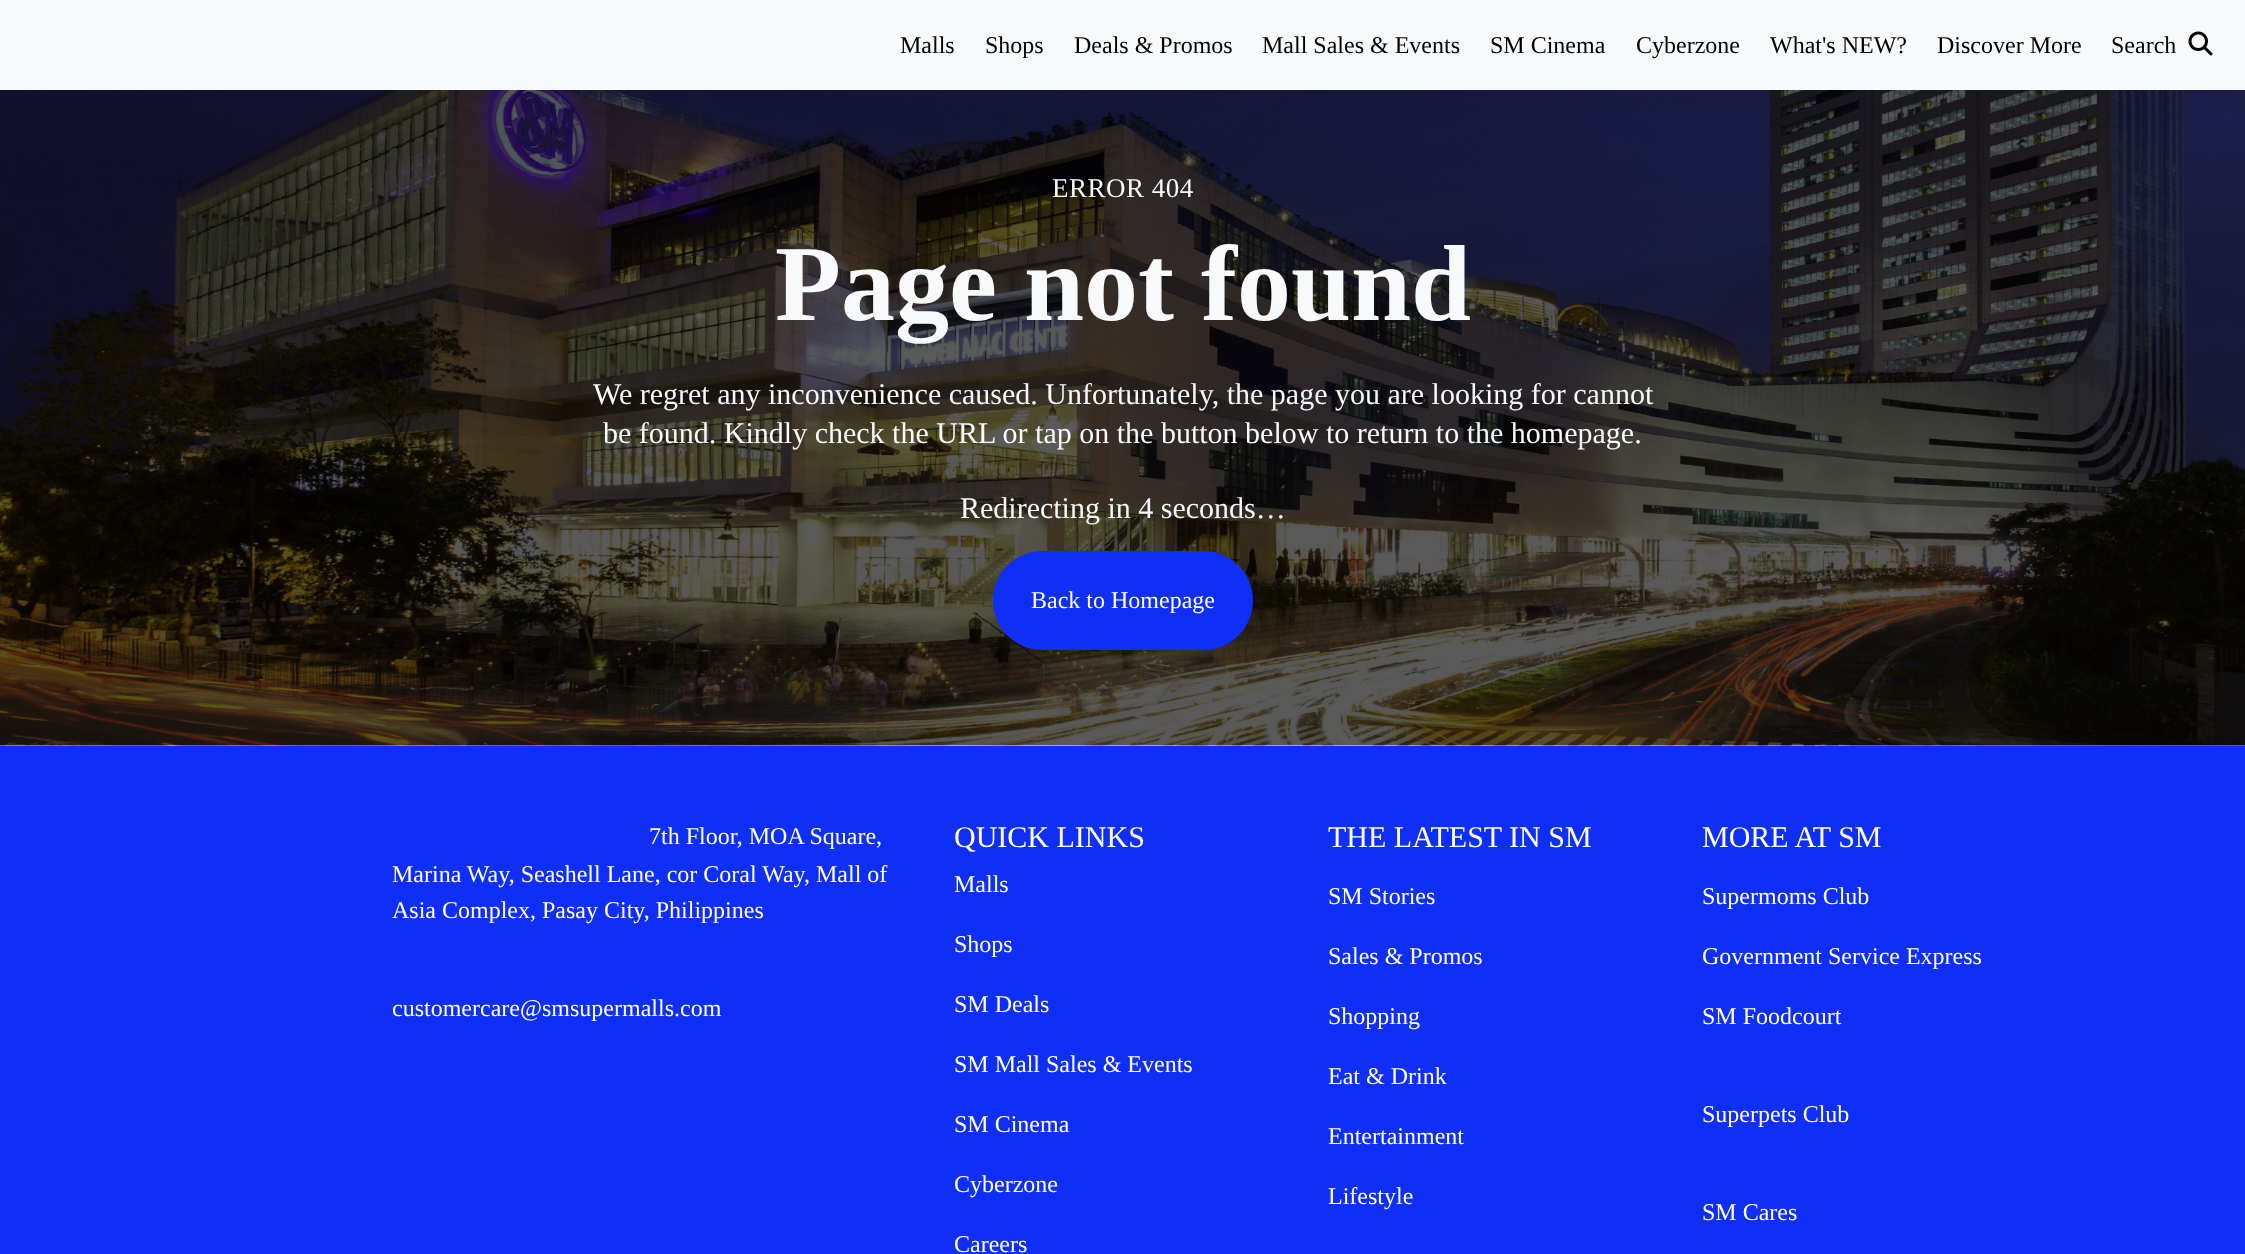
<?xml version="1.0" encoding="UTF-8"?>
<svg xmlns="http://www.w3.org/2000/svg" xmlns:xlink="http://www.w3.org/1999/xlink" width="2245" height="1254">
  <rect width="100%" height="100%" fill="#ffffff" />
  <rect width="2245" height="90" fill="#f8f9fa" />
  <image x="2188" y="31" width="25" height="25" xlink:href="image1.png" />
  <image x="0" y="90" width="2245" height="656" xlink:href="image2.png" />
  <rect x="993" y="551" width="260" height="99" rx="49.5" fill="#102ff6" />
  <rect y="746" width="2245" height="508" fill="#102ff6" />
  <text x="900" y="53" style="font-family: Liberation Serif; font-size: 24px; fill: #000000">Malls</text>
  <text x="985" y="53" style="font-family: Liberation Serif; font-size: 24px; fill: #000000">Shops</text>
  <text x="1074" y="53" style="font-family: Liberation Serif; font-size: 24px; fill: #000000">Deals &amp; Promos</text>
  <text x="1262" y="53" style="font-family: Liberation Serif; font-size: 24px; fill: #000000">Mall Sales &amp; Events</text>
  <text x="1490" y="53" style="font-family: Liberation Serif; font-size: 24px; fill: #000000">SM Cinema</text>
  <text x="1636" y="53" style="font-family: Liberation Serif; font-size: 24px; fill: #000000">Cyberzone</text>
  <text x="1770" y="53" style="font-family: Liberation Serif; font-size: 24px; fill: #000000">What's NEW?</text>
  <text x="1937" y="53" style="font-family: Liberation Serif; font-size: 24px; fill: #000000">Discover More</text>
  <text x="2111" y="53" style="font-family: Liberation Serif; font-size: 24px; fill: #000000">Search</text>
  <text x="1052" y="197" style="font-family: Liberation Serif; font-size: 27px; letter-spacing: 0.5px; fill: #f8f9fa">ERROR 404</text>
  <text x="775" y="320" style="font-family: Liberation Serif; font-size: 108px; font-weight: bold; fill: #f8f9fa">Page not found</text>
  <text x="593" y="404" style="font-family: Liberation Serif; font-size: 30px; fill: #f8f9fa">We regret any inconvenience caused. Unfortunately, the page you are looking for cannot</text>
  <text x="603" y="443" style="font-family: Liberation Serif; font-size: 30px; fill: #f8f9fa">be found. Kindly check the URL or tap on the button below to return to the homepage.</text>
  <text x="960" y="518" style="font-family: Liberation Serif; font-size: 30px; fill: #f8f9fa">Redirecting in 4 seconds…</text>
  <text x="1031" y="608" style="font-family: Liberation Serif; font-size: 24px; fill: #ffffff">Back to Homepage</text>
  <text x="649" y="844" style="font-family: Liberation Serif; font-size: 24px; fill: #ffffff">7th Floor, MOA Square,</text>
  <text x="392" y="882" style="font-family: Liberation Serif; font-size: 24px; fill: #ffffff">Marina Way, Seashell Lane, cor Coral Way, Mall of</text>
  <text x="392" y="918" style="font-family: Liberation Serif; font-size: 24px; fill: #ffffff">Asia Complex, Pasay City, Philippines</text>
  <text x="392" y="1016" style="font-family: Liberation Serif; font-size: 24px; fill: #ffffff">customercare@smsupermalls.com</text>
  <text x="954" y="847" style="font-family: Liberation Serif; font-size: 30px; fill: #ffffff">QUICK LINKS</text>
  <text x="954" y="892" style="font-family: Liberation Serif; font-size: 24px; fill: #ffffff">Malls</text>
  <text x="954" y="952" style="font-family: Liberation Serif; font-size: 24px; fill: #ffffff">Shops</text>
  <text x="954" y="1012" style="font-family: Liberation Serif; font-size: 24px; fill: #ffffff">SM Deals</text>
  <text x="954" y="1072" style="font-family: Liberation Serif; font-size: 24px; fill: #ffffff">SM Mall Sales &amp; Events</text>
  <text x="954" y="1132" style="font-family: Liberation Serif; font-size: 24px; fill: #ffffff">SM Cinema</text>
  <text x="954" y="1192" style="font-family: Liberation Serif; font-size: 24px; fill: #ffffff">Cyberzone</text>
  <text x="954" y="1252" style="font-family: Liberation Serif; font-size: 24px; fill: #ffffff">Careers</text>
  <text x="1328" y="847" style="font-family: Liberation Serif; font-size: 30px; fill: #ffffff">THE LATEST IN SM</text>
  <text x="1328" y="904" style="font-family: Liberation Serif; font-size: 24px; fill: #ffffff">SM Stories</text>
  <text x="1328" y="964" style="font-family: Liberation Serif; font-size: 24px; fill: #ffffff">Sales &amp; Promos</text>
  <text x="1328" y="1024" style="font-family: Liberation Serif; font-size: 24px; fill: #ffffff">Shopping</text>
  <text x="1328" y="1084" style="font-family: Liberation Serif; font-size: 24px; fill: #ffffff">Eat &amp; Drink</text>
  <text x="1328" y="1144" style="font-family: Liberation Serif; font-size: 24px; fill: #ffffff">Entertainment</text>
  <text x="1328" y="1204" style="font-family: Liberation Serif; font-size: 24px; fill: #ffffff">Lifestyle</text>
  <text x="1702" y="847" style="font-family: Liberation Serif; font-size: 30px; fill: #ffffff">MORE AT SM</text>
  <text x="1702" y="904" style="font-family: Liberation Serif; font-size: 24px; fill: #ffffff">Supermoms Club</text>
  <text x="1702" y="964" style="font-family: Liberation Serif; font-size: 24px; fill: #ffffff">Government Service Express</text>
  <text x="1702" y="1024" style="font-family: Liberation Serif; font-size: 24px; fill: #ffffff">SM Foodcourt</text>
  <text x="1702" y="1122" style="font-family: Liberation Serif; font-size: 24px; fill: #ffffff">Superpets Club</text>
  <text x="1702" y="1220" style="font-family: Liberation Serif; font-size: 24px; fill: #ffffff">SM Cares</text>
</svg>
